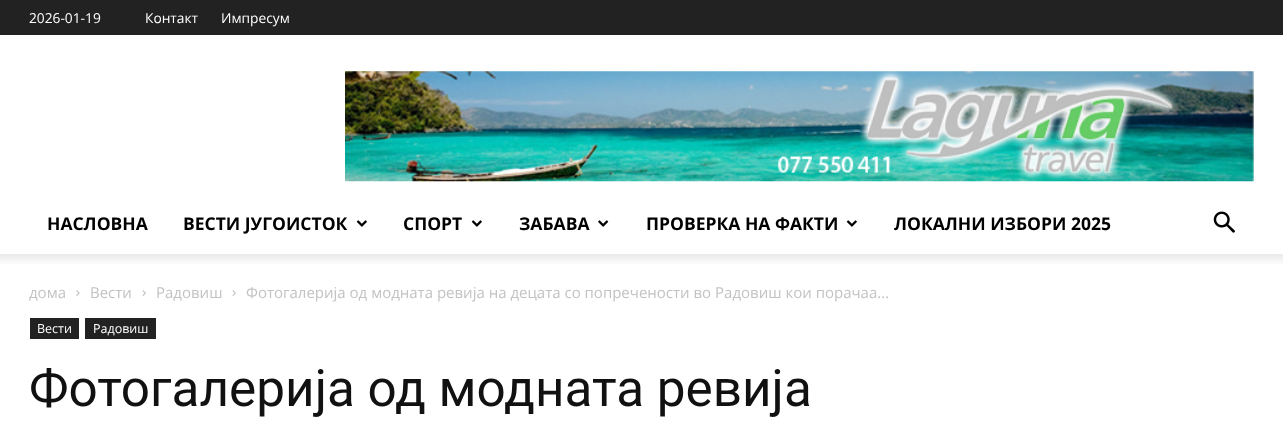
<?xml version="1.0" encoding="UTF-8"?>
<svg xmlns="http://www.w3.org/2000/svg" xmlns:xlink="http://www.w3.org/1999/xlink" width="1283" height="434">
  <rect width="100%" height="100%" fill="#ffffff" />
  <rect width="1283" height="35" fill="#222222" />
  <image x="345" y="71" width="909" height="111" xlink:href="image1.png" />
  <image x="356" y="220" width="11" height="7" xlink:href="image2.png" />
  <image x="471" y="220" width="11" height="7" xlink:href="image2.png" />
  <image x="598" y="220" width="11" height="7" xlink:href="image3.png" />
  <image x="846" y="220" width="11" height="7" xlink:href="image2.png" />
  <image x="1213" y="211" width="22" height="22" xlink:href="image4.png" />
  <image x="0" y="254" width="1283" height="10" xlink:href="image5.png" />
  <image x="76" y="290" width="4" height="6" xlink:href="image6.png" />
  <image x="142" y="290" width="4" height="6" xlink:href="image7.png" />
  <image x="232" y="290" width="4" height="6" xlink:href="image7.png" />
  <rect x="30" y="318" width="49" height="21" fill="#222222" />
  <rect x="85" y="318" width="71" height="21" fill="#222222" />
  <text x="29" y="23" style="font-family: Open Sans; font-size: 13.75px; fill: #ffffff">2026-01-19</text>
  <text x="145" y="23" style="font-family: Open Sans; font-size: 13.75px; fill: #ffffff">Контакт</text>
  <text x="221" y="23" style="font-family: Open Sans; font-size: 13.75px; fill: #ffffff">Импресум</text>
  <text x="47" y="230" style="font-family: Open Sans; font-size: 17.5px; font-weight: bold; fill: #000000">НАСЛОВНА</text>
  <text x="183" y="230" style="font-family: Open Sans; font-size: 17.5px; font-weight: bold; fill: #000000">ВЕСТИ ЈУГОИСТОК</text>
  <text x="403" y="230" style="font-family: Open Sans; font-size: 17.5px; font-weight: bold; fill: #000000">СПОРТ</text>
  <text x="519" y="230" style="font-family: Open Sans; font-size: 17.5px; font-weight: bold; fill: #000000">ЗАБАВА</text>
  <text x="646" y="230" style="font-family: Open Sans; font-size: 17.5px; font-weight: bold; fill: #000000">ПРОВЕРКА НА ФАКТИ</text>
  <text x="894" y="230" style="font-family: Open Sans; font-size: 17.5px; font-weight: bold; fill: #000000">ЛОКАЛНИ ИЗБОРИ 2025</text>
  <text x="29" y="298" style="font-family: Open Sans; font-size: 15px; fill: #c3c3c3">дома</text>
  <text x="90" y="298" style="font-family: Open Sans; font-size: 15px; fill: #c3c3c3">Вести</text>
  <text x="156" y="298" style="font-family: Open Sans; font-size: 15px; fill: #c3c3c3">Радовиш</text>
  <text x="246" y="298" style="font-family: Open Sans; font-size: 15px; fill: #c3c3c3">Фотогалерија од модната ревија на децата со попречености во Радовиш кои порачаа...</text>
  <text x="37" y="333" style="font-family: Open Sans; font-size: 12.5px; fill: #ffffff">Вести</text>
  <text x="93" y="333" style="font-family: Open Sans; font-size: 12.5px; fill: #ffffff">Радовиш</text>
  <text x="29" y="406" style="font-family: Roboto; font-size: 51.25px; fill: #111111">Фотогалерија од модната ревија</text>
</svg>
